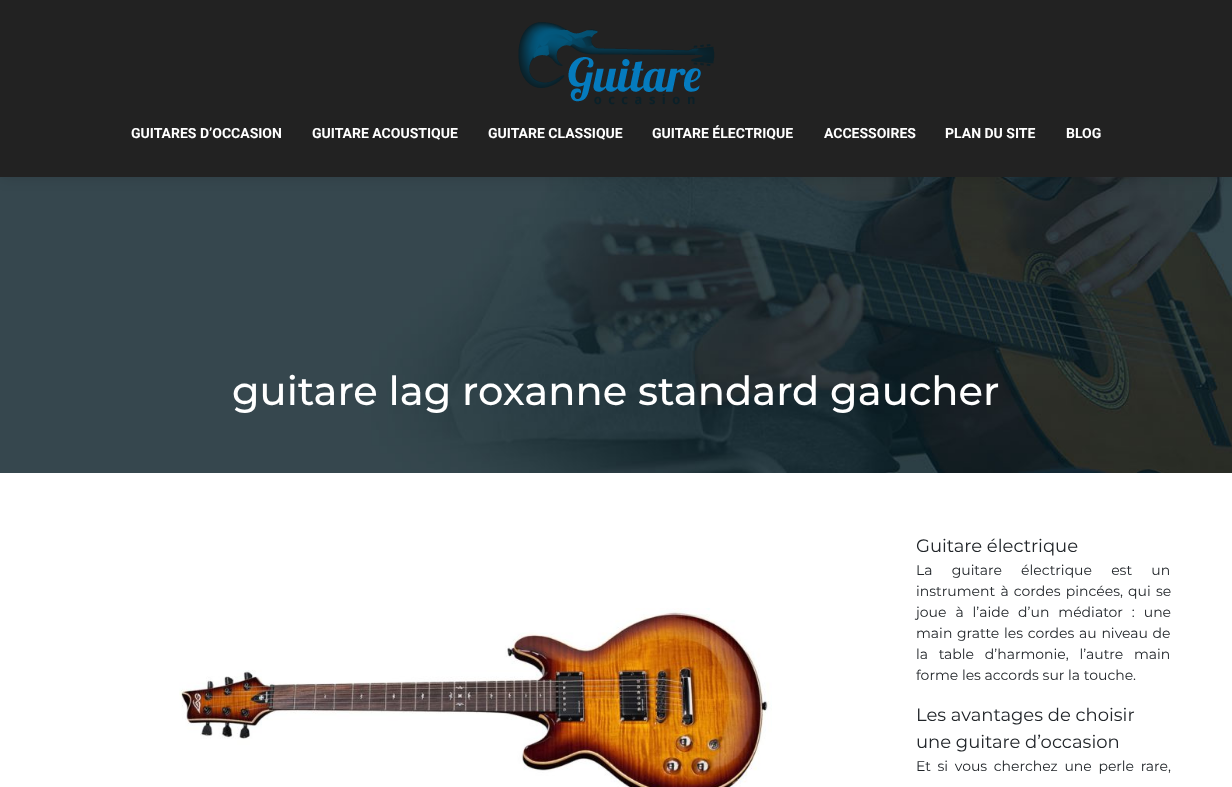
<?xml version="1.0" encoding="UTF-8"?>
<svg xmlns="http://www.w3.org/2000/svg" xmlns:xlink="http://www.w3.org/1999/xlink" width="1232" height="787">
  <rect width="100%" height="100%" fill="#ffffff" />
  <image x="0" y="177" width="1232" height="296" xlink:href="image2.png" />
  <rect y="2" width="1232" height="177" fill="#000000" fill-opacity="0.1" filter="blur(6.5px)" />
  <rect width="1232" height="177" fill="#222222" />
  <image x="518" y="22" width="197" height="83" xlink:href="image1.png" />
  <image x="179" y="608" width="593" height="179" xlink:href="image3.png" />
  <text x="131" y="138" style="font-family: Roboto; font-size: 14px; font-weight: bold; fill: #ffffff">GUITARES D’OCCASION</text>
  <text x="312" y="138" style="font-family: Roboto; font-size: 14px; font-weight: bold; fill: #ffffff">GUITARE ACOUSTIQUE</text>
  <text x="488" y="138" style="font-family: Roboto; font-size: 14px; font-weight: bold; fill: #ffffff">GUITARE CLASSIQUE</text>
  <text x="652" y="138" style="font-family: Roboto; font-size: 14px; font-weight: bold; fill: #ffffff">GUITARE ÉLECTRIQUE</text>
  <text x="824" y="138" style="font-family: Roboto; font-size: 14px; font-weight: bold; fill: #ffffff">ACCESSOIRES</text>
  <text x="945" y="138" style="font-family: Roboto; font-size: 14px; font-weight: bold; fill: #ffffff">PLAN DU SITE</text>
  <text x="1066" y="138" style="font-family: Roboto; font-size: 14px; font-weight: bold; fill: #ffffff">BLOG</text>
  <text x="232" y="405" style="font-family: Montserrat; font-size: 40px; font-weight: 500; fill: #ffffff">guitare lag roxanne standard gaucher</text>
  <text x="916" y="552" style="font-family: Montserrat; font-size: 18px; fill: #212529">Guitare électrique</text>
  <text x="916" y="575" word-spacing="15.5" style="font-family: Montserrat; font-size: 14px; fill: #212529">La guitare électrique est un</text>
  <text x="916" y="596" word-spacing="1.5" style="font-family: Montserrat; font-size: 14px; fill: #212529">instrument à cordes pincées, qui se</text>
  <text x="916" y="617" word-spacing="5.25" style="font-family: Montserrat; font-size: 14px; fill: #212529">joue à l’aide d’un médiator : une</text>
  <text x="916" y="638" word-spacing="1" style="font-family: Montserrat; font-size: 14px; fill: #212529">main gratte les cordes au niveau de</text>
  <text x="916" y="659" word-spacing="7" style="font-family: Montserrat; font-size: 14px; fill: #212529">la table d’harmonie, l’autre main</text>
  <text x="916" y="680" style="font-family: Montserrat; font-size: 14px; fill: #212529">forme les accords sur la touche.</text>
  <text x="916" y="721" style="font-family: Montserrat; font-size: 18px; fill: #212529">Les avantages de choisir</text>
  <text x="916" y="748" style="font-family: Montserrat; font-size: 18px; fill: #212529">une guitare d’occasion</text>
  <text x="916" y="771" word-spacing="3" style="font-family: Montserrat; font-size: 14px; fill: #212529">Et si vous cherchez une perle rare,</text>
</svg>
